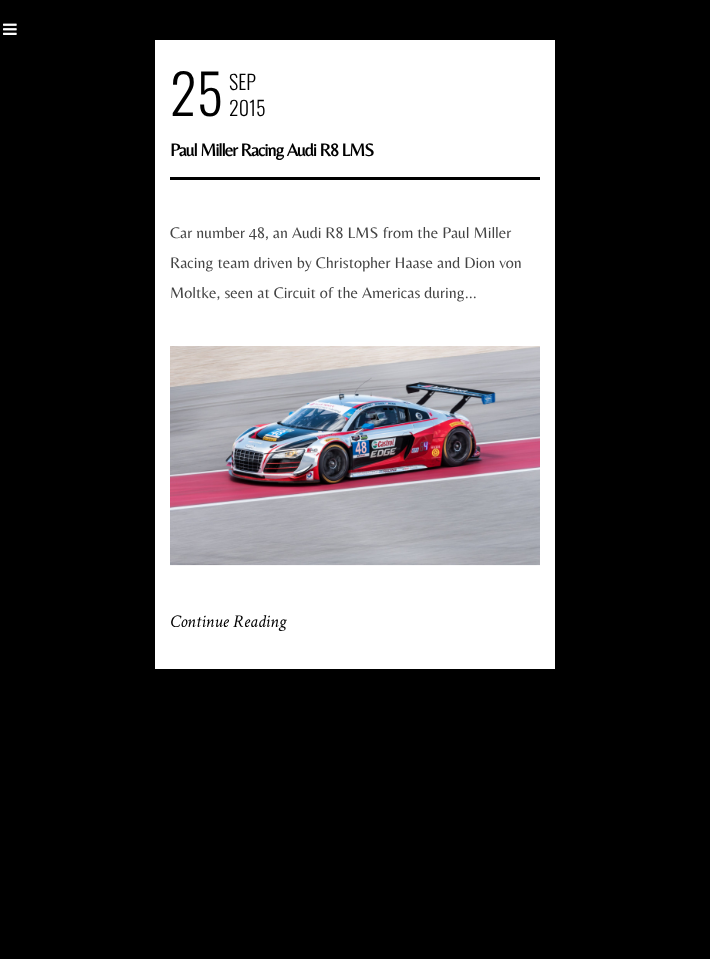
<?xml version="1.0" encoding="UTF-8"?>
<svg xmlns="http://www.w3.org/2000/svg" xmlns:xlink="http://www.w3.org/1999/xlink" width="710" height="959">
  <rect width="100%" height="100%" fill="#000000" />
  <image x="3" y="23" width="14" height="12" xlink:href="image1.png" />
  <rect x="155" y="40" width="400" height="629" fill="#ffffff" />
  <rect x="170" y="177" width="370" height="3" fill="#000000" />
  <image x="170" y="346" width="370" height="220" xlink:href="image2.png" />
  <text x="170" y="116" style="font-family: Oswald; font-size: 55px; font-weight: 300; fill: #000000">25</text>
  <text x="229" y="90" style="font-family: Oswald; font-size: 20px; font-weight: 300; fill: #000000">SEP</text>
  <text x="229" y="116" style="font-family: Oswald; font-size: 20px; font-weight: 300; fill: #000000">2015</text>
  <text x="170" y="156" style="font-family: Belleza; font-size: 18px; font-weight: bold; letter-spacing: -1px; fill: #000000">Paul Miller Racing Audi R8 LMS</text>
  <text x="170" y="238" style="font-family: Belleza; font-size: 16px; fill: #444444">Car number 48, an Audi R8 LMS from the Paul Miller</text>
  <text x="170" y="268" style="font-family: Belleza; font-size: 16px; fill: #444444">Racing team driven by Christopher Haase and Dion von</text>
  <text x="170" y="298" style="font-family: Belleza; font-size: 16px; fill: #444444">Moltke, seen at Circuit of the Americas during...</text>
  <text x="170" y="627" style="font-family: Crimson Text; font-size: 18px; font-style: italic; fill: #000000">Continue Reading</text>
</svg>
